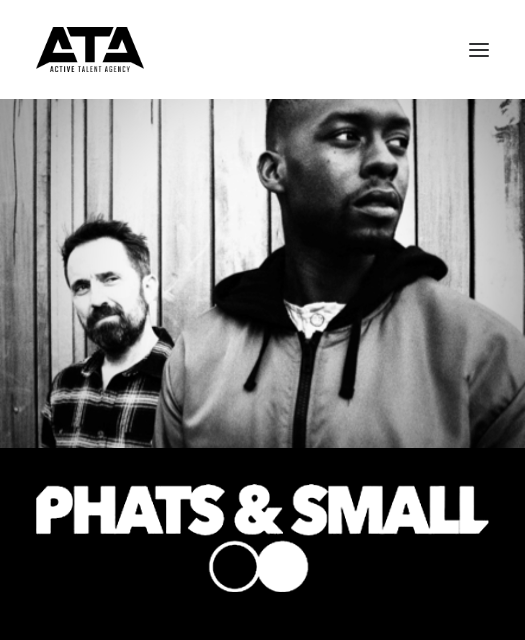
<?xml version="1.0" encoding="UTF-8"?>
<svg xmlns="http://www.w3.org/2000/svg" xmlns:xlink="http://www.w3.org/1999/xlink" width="525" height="640">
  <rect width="100%" height="100%" fill="#ffffff" />
  <image x="36" y="27" width="108" height="45" xlink:href="image1.png" />
  <rect x="469" y="49" width="20" height="2" rx="1" fill="#303133" />
  <rect x="469" y="43" width="20" height="2" rx="1" fill="#303133" />
  <rect x="469" y="55" width="20" height="2" rx="1" fill="#303133" />
  <image x="0" y="99" width="525" height="349" xlink:href="image2.png" />
  <rect y="448" width="525" height="192" fill="#000000" />
  <image x="36" y="484" width="453" height="108" xlink:href="image3.png" />
</svg>
